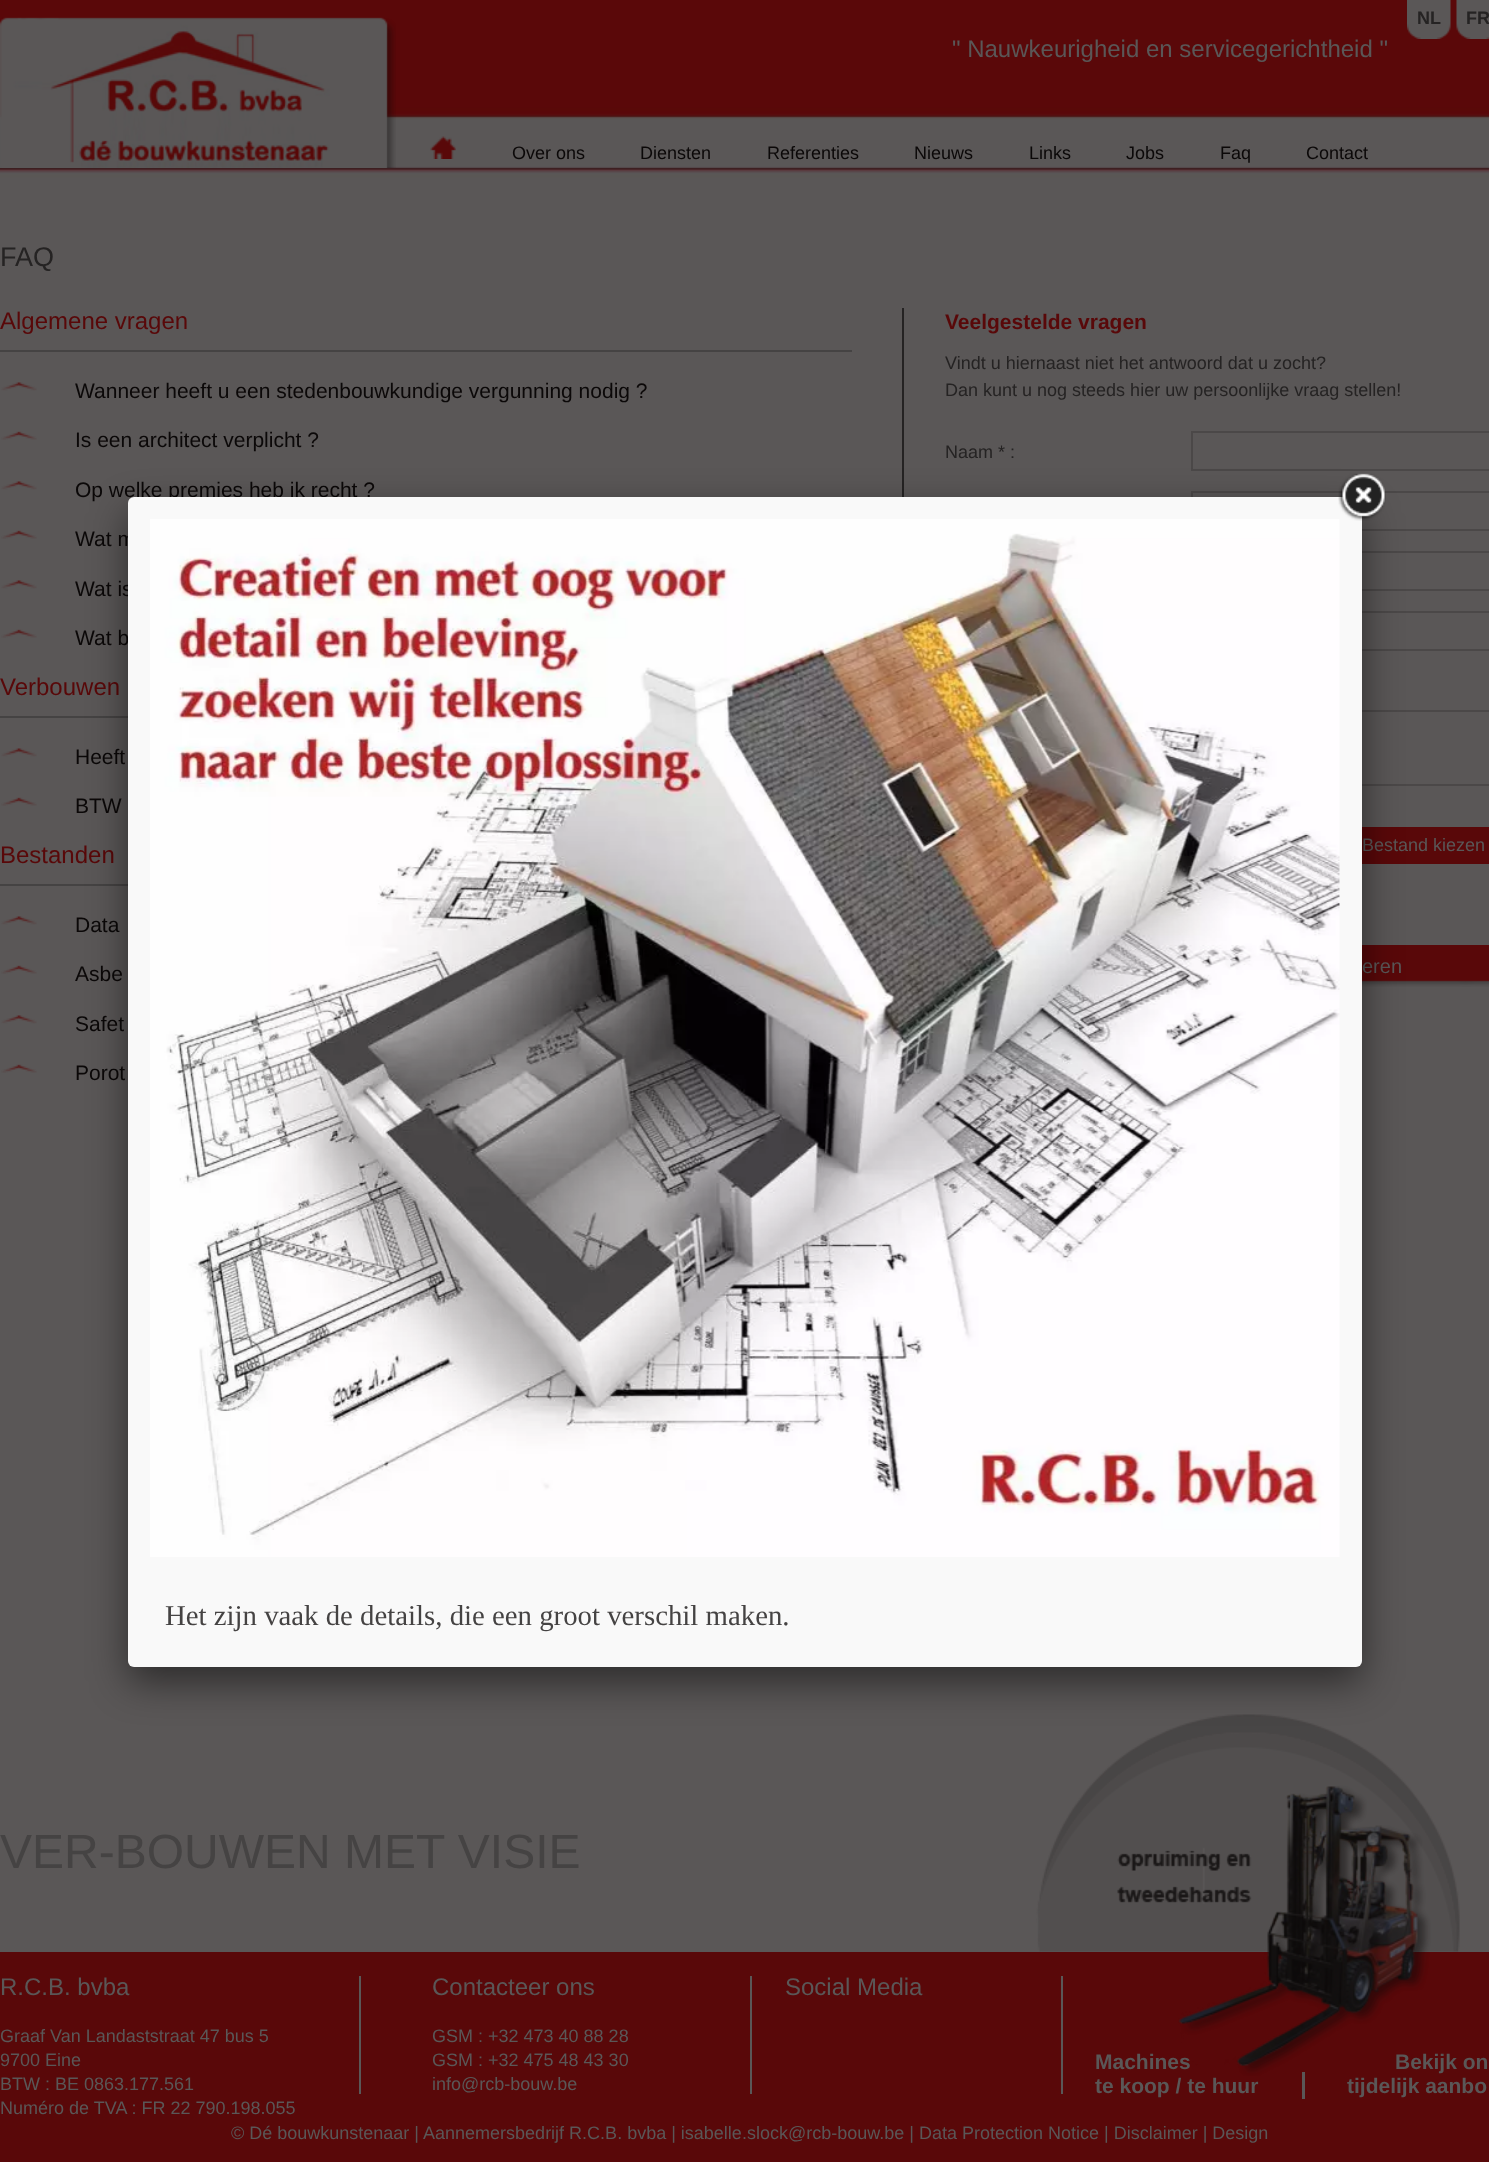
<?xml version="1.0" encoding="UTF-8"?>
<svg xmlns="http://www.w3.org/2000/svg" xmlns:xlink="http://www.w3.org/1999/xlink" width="1489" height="2162">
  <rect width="100%" height="100%" fill="#5a5757" />
  <image x="0" y="0" width="1489" height="178" xlink:href="image1.png" />
  <image x="0" y="17" width="396" height="151" xlink:href="image2.png" />
  <image x="1407" y="0" width="44" height="39" xlink:href="image3.png" />
  <image x="1456" y="0" width="33" height="39" xlink:href="image4.png" />
  <image x="430" y="136" width="26" height="23" xlink:href="image5.png" />
  <rect x="902" y="308" width="2" height="189" fill="#252323" />
  <rect y="350" width="852" height="2" fill="#454343" />
  <image x="1" y="382" width="36" height="9" xlink:href="image6.png" />
  <image x="1" y="431" width="36" height="9" xlink:href="image7.png" />
  <image x="1" y="481" width="36" height="9" xlink:href="image6.png" />
  <image x="1" y="530" width="36" height="9" xlink:href="image7.png" />
  <image x="1" y="580" width="36" height="9" xlink:href="image6.png" />
  <image x="1" y="629" width="36" height="9" xlink:href="image7.png" />
  <rect y="716" width="128" height="2" fill="#454343" />
  <image x="1" y="748" width="36" height="9" xlink:href="image6.png" />
  <image x="1" y="797" width="36" height="9" xlink:href="image7.png" />
  <rect y="884" width="128" height="2" fill="#454343" />
  <image x="1" y="916" width="36" height="9" xlink:href="image6.png" />
  <image x="1" y="965" width="36" height="9" xlink:href="image7.png" />
  <image x="1" y="1015" width="36" height="9" xlink:href="image6.png" />
  <image x="1" y="1064" width="36" height="9" xlink:href="image7.png" />
  <rect x="1192" y="432" width="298" height="38" fill="none" stroke="#4b4848" stroke-width="2" />
  <rect x="1192" y="492" width="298" height="38" fill="none" stroke="#4b4848" stroke-width="2" />
  <rect x="1192" y="552" width="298" height="38" fill="none" stroke="#4b4848" stroke-width="2" />
  <rect x="1192" y="612" width="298" height="38" fill="none" stroke="#4b4848" stroke-width="2" />
  <rect x="946" y="711" width="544" height="74" fill="none" stroke="#4b4848" stroke-width="2" />
  <rect x="1362" y="827" width="127" height="37" fill="#590809" />
  <image x="1362" y="945" width="127" height="42" xlink:href="image8.png" />
  <rect y="1952" width="1489" height="210" fill="#590809" />
  <rect x="359" y="1976" width="2" height="118" fill="#5a5757" />
  <rect x="750" y="1976" width="2" height="118" fill="#5a5757" />
  <rect x="1061" y="1976" width="2" height="118" fill="#5a5757" />
  <rect x="1302" y="2072" width="3" height="27" fill="#5a5757" />
  <text x="952" y="57" style="font-family: Liberation Sans; font-size: 24px; fill: #5a5757">" Nauwkeurigheid en servicegerichtheid "</text>
  <text x="1417" y="24" style="font-family: Liberation Sans; font-size: 18px; font-weight: bold; fill: #252323">NL</text>
  <text x="1466" y="24" style="font-family: Liberation Sans; font-size: 18px; font-weight: bold; fill: #252323">FR</text>
  <text x="512" y="159" style="font-family: Liberation Sans; font-size: 18px; fill: #0b0808">Over ons</text>
  <text x="640" y="159" style="font-family: Liberation Sans; font-size: 18px; fill: #0b0808">Diensten</text>
  <text x="767" y="159" style="font-family: Liberation Sans; font-size: 18px; fill: #0b0808">Referenties</text>
  <text x="914" y="159" style="font-family: Liberation Sans; font-size: 18px; fill: #0b0808">Nieuws</text>
  <text x="1029" y="159" style="font-family: Liberation Sans; font-size: 18px; fill: #0b0808">Links</text>
  <text x="1126" y="159" style="font-family: Liberation Sans; font-size: 18px; fill: #0b0808">Jobs</text>
  <text x="1220" y="159" style="font-family: Liberation Sans; font-size: 18px; fill: #0b0808">Faq</text>
  <text x="1306" y="159" style="font-family: Liberation Sans; font-size: 18px; fill: #0b0808">Contact</text>
  <text x="0" y="266" style="font-family: Liberation Sans; font-size: 27px; fill: #252323">FAQ</text>
  <text x="0" y="329" style="font-family: Liberation Sans; font-size: 24px; fill: #590809">Algemene vragen</text>
  <text x="75" y="398" style="font-family: Liberation Sans; font-size: 21px; fill: #0b0808">Wanneer heeft u een stedenbouwkundige vergunning nodig ?</text>
  <text x="75" y="447" style="font-family: Liberation Sans; font-size: 21px; fill: #0b0808">Is een architect verplicht ?</text>
  <text x="75" y="497" style="font-family: Liberation Sans; font-size: 21px; fill: #0b0808">Op welke premies heb ik recht ?</text>
  <text x="75" y="546" style="font-family: Liberation Sans; font-size: 21px; fill: #0b0808">Wat m</text>
  <text x="75" y="596" style="font-family: Liberation Sans; font-size: 21px; fill: #0b0808">Wat is</text>
  <text x="75" y="645" style="font-family: Liberation Sans; font-size: 21px; fill: #0b0808">Wat b</text>
  <text x="0" y="695" style="font-family: Liberation Sans; font-size: 24px; fill: #590809">Verbouwen</text>
  <text x="75" y="764" style="font-family: Liberation Sans; font-size: 21px; fill: #0b0808">Heeft</text>
  <text x="75" y="813" style="font-family: Liberation Sans; font-size: 21px; fill: #0b0808">BTW</text>
  <text x="0" y="863" style="font-family: Liberation Sans; font-size: 24px; fill: #590809">Bestanden</text>
  <text x="75" y="932" style="font-family: Liberation Sans; font-size: 21px; fill: #0b0808">Data</text>
  <text x="75" y="981" style="font-family: Liberation Sans; font-size: 21px; fill: #0b0808">Asbe</text>
  <text x="75" y="1031" style="font-family: Liberation Sans; font-size: 21px; fill: #0b0808">Safet</text>
  <text x="75" y="1080" style="font-family: Liberation Sans; font-size: 21px; fill: #0b0808">Porot</text>
  <text x="945" y="329" style="font-family: Liberation Sans; font-size: 21px; font-weight: bold; fill: #590809">Veelgestelde vragen</text>
  <text x="945" y="369" style="font-family: Liberation Sans; font-size: 18px; fill: #252323">Vindt u hiernaast niet het antwoord dat u zocht?</text>
  <text x="945" y="396" style="font-family: Liberation Sans; font-size: 18px; fill: #252323">Dan kunt u nog steeds hier uw persoonlijke vraag stellen!</text>
  <text x="945" y="458" style="font-family: Liberation Sans; font-size: 18px; fill: #252323">Naam * :</text>
  <text x="1362" y="851" style="font-family: Liberation Sans; font-size: 18px; fill: #5a5757">Bestand kiezen</text>
  <text x="1362" y="973" style="font-family: Liberation Sans; font-size: 20px; fill: #5a5757">eren</text>
  <text x="0" y="1868" style="font-family: Liberation Sans; font-size: 48px; fill: #454343">VER-BOUWEN MET VISIE</text>
  <text x="0" y="1995" style="font-family: Liberation Sans; font-size: 24px; fill: #5a5757">R.C.B. bvba</text>
  <text x="0" y="2042" style="font-family: Liberation Sans; font-size: 18px; fill: #5a5757">Graaf Van Landaststraat 47 bus 5</text>
  <text x="0" y="2066" style="font-family: Liberation Sans; font-size: 18px; fill: #5a5757">9700 Eine</text>
  <text x="0" y="2090" style="font-family: Liberation Sans; font-size: 18px; fill: #5a5757">BTW : BE 0863.177.561</text>
  <text x="0" y="2114" style="font-family: Liberation Sans; font-size: 18px; fill: #5a5757">Numéro de TVA : FR 22 790.198.055</text>
  <text x="432" y="1995" style="font-family: Liberation Sans; font-size: 24px; fill: #5a5757">Contacteer ons</text>
  <text x="432" y="2042" style="font-family: Liberation Sans; font-size: 18px; fill: #5a5757">GSM : +32 473 40 88 28</text>
  <text x="432" y="2066" style="font-family: Liberation Sans; font-size: 18px; fill: #5a5757">GSM : +32 475 48 43 30</text>
  <text x="432" y="2090" style="font-family: Liberation Sans; font-size: 18px; fill: #5a5757">info@rcb-bouw.be</text>
  <text x="785" y="1995" style="font-family: Liberation Sans; font-size: 24px; fill: #5a5757">Social Media</text>
  <text x="1095" y="2069" style="font-family: Liberation Sans; font-size: 21px; font-weight: bold; fill: #5a5757">Machines</text>
  <text x="1395" y="2069" style="font-family: Liberation Sans; font-size: 21px; font-weight: bold; fill: #5a5757">Bekijk on</text>
  <image x="1036" y="1714" width="424" height="362" xlink:href="image9.png" />
  <text x="1095" y="2093" style="font-family: Liberation Sans; font-size: 21px; font-weight: bold; fill: #5a5757">te koop / te huur</text>
  <text x="1347" y="2093" style="font-family: Liberation Sans; font-size: 21px; font-weight: bold; fill: #5a5757">tijdelijk aanbo</text>
  <text x="231" y="2139" style="font-family: Liberation Sans; font-size: 18px; fill: #5a5757">© Dé bouwkunstenaar | Aannemersbedrijf R.C.B. bvba | isabelle.slock@rcb-bouw.be | Data Protection Notice | Disclaimer | Design</text>
  <rect x="128" y="512" width="1234" height="1170" rx="6" fill="#000000" fill-opacity="0.5" filter="blur(19px)" />
  <rect x="128" y="497" width="1234" height="1170" rx="6" fill="#f9f9f9" />
  <image x="150" y="519" width="1190" height="1038" xlink:href="image11.png" />
  <image x="1338" y="473" width="48" height="48" xlink:href="image10.png" />
  <text x="165" y="1625" style="font-family: Liberation Serif; font-size: 28.8px; fill: #454343">Het zijn vaak de details, die een groot verschil maken.</text>
</svg>
